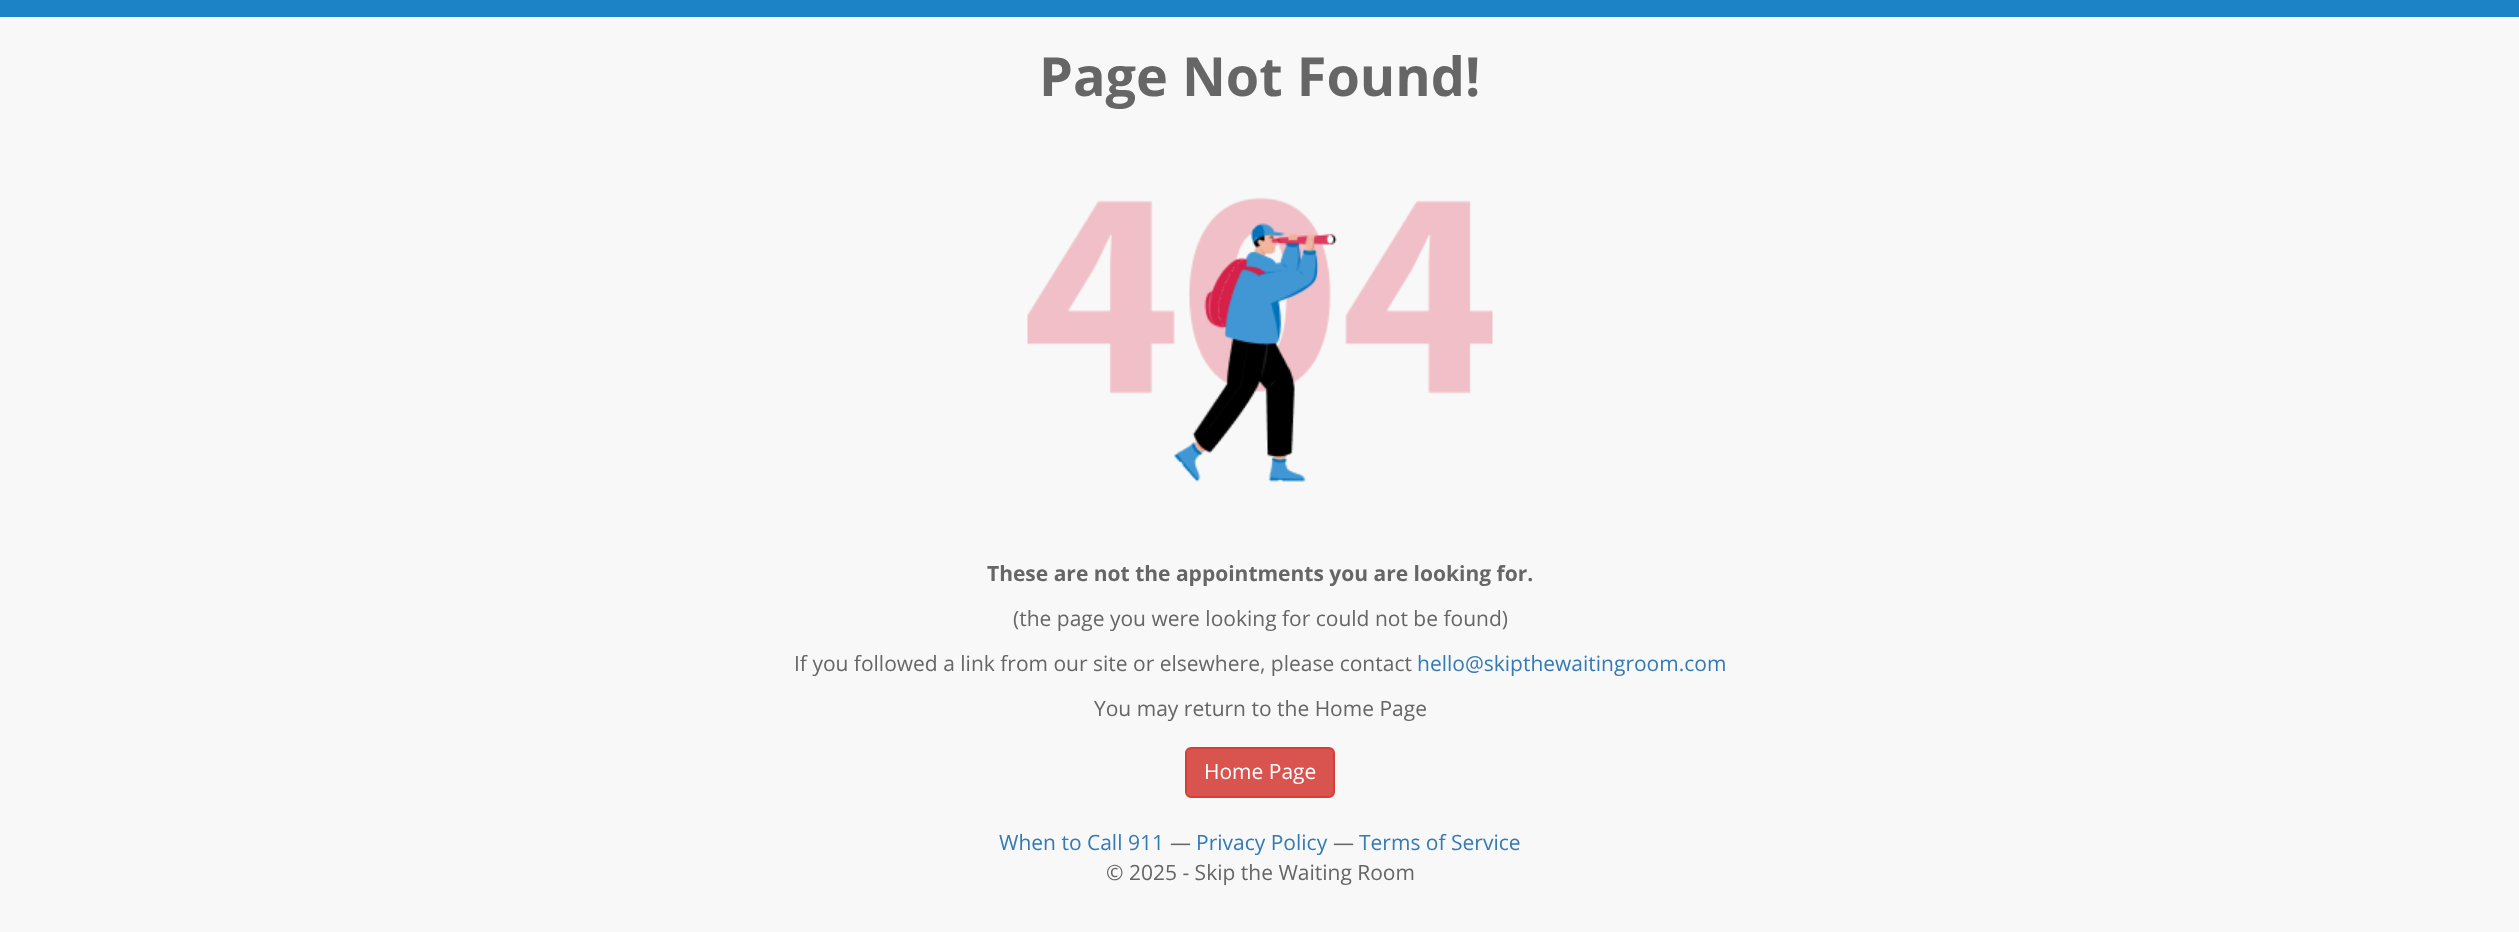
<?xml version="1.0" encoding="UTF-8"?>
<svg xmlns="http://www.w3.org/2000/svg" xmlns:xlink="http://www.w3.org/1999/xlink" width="2519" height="932">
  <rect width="100%" height="100%" fill="#f8f8f8" />
  <rect width="2519" height="17" fill="#1c84c6" />
  <image x="1027" y="197" width="466" height="285" xlink:href="image1.png" />
  <rect x="1186" y="748" width="148" height="49" rx="5" fill="#d9534f" stroke="#d43f3a" stroke-width="2" />
  <text x="1039" y="96" style="font-family: Open Sans; font-size: 54px; font-weight: bold; fill: #666666">Page Not Found!</text>
  <text x="987" y="581" style="font-family: Open Sans; font-size: 21px; font-weight: bold; fill: #666666">These are not the appointments you are looking for.</text>
  <text x="1013" y="626" style="font-family: Open Sans; font-size: 21px; fill: #666666">(the page you were looking for could not be found)</text>
  <text x="794" y="671" style="font-family: Open Sans; font-size: 21px; fill: #666666">If you followed a link from our site or elsewhere, please contact</text>
  <text x="1417" y="671" style="font-family: Open Sans; font-size: 21px; fill: #337ab7">hello@skipthewaitingroom.com</text>
  <text x="1094" y="716" style="font-family: Open Sans; font-size: 21px; fill: #666666">You may return to the Home Page</text>
  <text x="1204" y="779" style="font-family: Open Sans; font-size: 21px; fill: #ffffff">Home Page</text>
  <text x="999" y="850" style="font-family: Open Sans; font-size: 21px; fill: #337ab7">When to Call 911</text>
  <text x="1170" y="850" style="font-family: Open Sans; font-size: 21px; fill: #666666">—</text>
  <text x="1196" y="850" style="font-family: Open Sans; font-size: 21px; fill: #337ab7">Privacy Policy</text>
  <text x="1333" y="850" style="font-family: Open Sans; font-size: 21px; fill: #666666">—</text>
  <text x="1359" y="850" style="font-family: Open Sans; font-size: 21px; fill: #337ab7">Terms of Service</text>
  <text x="1106" y="880" style="font-family: Open Sans; font-size: 21px; fill: #666666">© 2025 - Skip the Waiting Room</text>
</svg>
